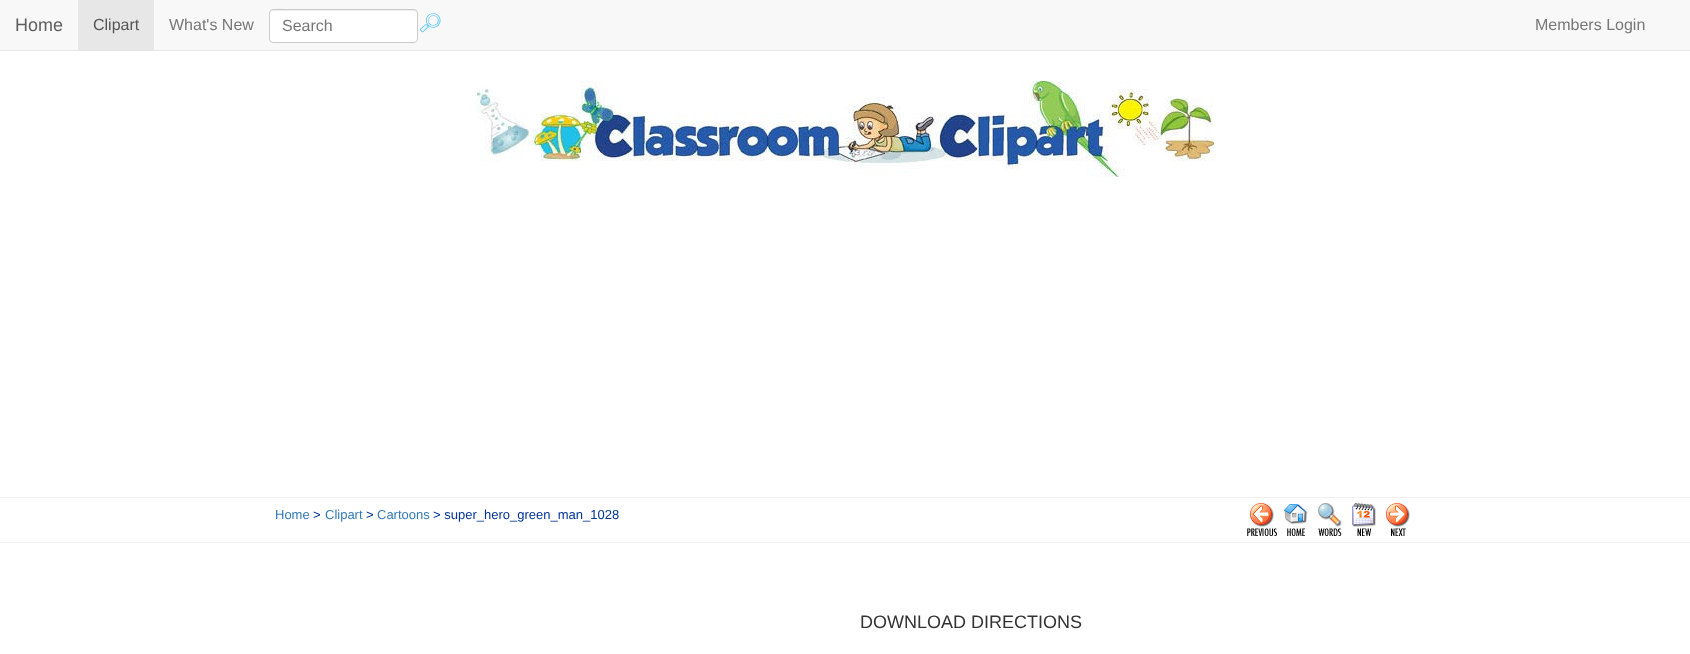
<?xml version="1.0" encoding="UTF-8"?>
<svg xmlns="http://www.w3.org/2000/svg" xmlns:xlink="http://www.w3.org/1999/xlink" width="1690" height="654">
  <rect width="100%" height="100%" fill="#ffffff" />
  <rect width="1690" height="50" fill="#f8f8f8" />
  <rect y="50" width="1690" height="1" fill="#e7e7e7" />
  <rect x="78" width="76" height="50" fill="#e7e7e7" />
  <rect x="269" y="9" width="149" height="34" rx="4" fill="#ffffff" />
  <path d="M 273 11 h 141 c 2 0 3 1 3 3 c 0 -2 0 -3 -2 -4 h -119 c -7 0 -26 -5 -26 4 c 0 -2 1 -3 3 -3 z" fill="#ececec" />
  <rect x="269.5" y="9.5" width="148" height="33" rx="3.5" fill="none" stroke="#cccccc" />
  <image x="419" y="13" width="22" height="20" xlink:href="image1.png" />
  <image x="477" y="81" width="737" height="96" xlink:href="image2.png" />
  <rect y="497" width="1690" height="1" fill="#f1f1f1" />
  <rect y="542" width="1690" height="1" fill="#f1f1f1" />
  <image x="1247" y="503" width="30" height="33" xlink:href="image3.png" />
  <image x="1284" y="504" width="24" height="32" xlink:href="image4.png" />
  <image x="1318" y="503" width="24" height="33" xlink:href="image5.png" />
  <image x="1352" y="503" width="24" height="33" xlink:href="image6.png" />
  <image x="1386" y="503" width="24" height="33" xlink:href="image7.png" />
  <text x="15" y="31" style="font-family: Liberation Sans; font-size: 18px; fill: #5e5e5e">Home</text>
  <text x="93" y="30" style="font-family: Liberation Sans; font-size: 16px; fill: #555555">Clipart</text>
  <text x="169" y="30" style="font-family: Liberation Sans; font-size: 16px; fill: #777777">What's New</text>
  <text x="282" y="31" style="font-family: Liberation Sans; font-size: 16px; fill: #777777">Search</text>
  <text x="1535" y="30" style="font-family: Liberation Sans; font-size: 16px; fill: #777777">Members Login</text>
  <text x="275" y="519" style="font-family: Liberation Sans; font-size: 13px; fill: #337ab7">Home</text>
  <text x="313" y="519" style="font-family: Liberation Sans; font-size: 13px; fill: #003399">&gt;</text>
  <text x="325" y="519" style="font-family: Liberation Sans; font-size: 13px; fill: #337ab7">Clipart</text>
  <text x="366" y="519" style="font-family: Liberation Sans; font-size: 13px; fill: #003399">&gt;</text>
  <text x="377" y="519" style="font-family: Liberation Sans; font-size: 13px; fill: #337ab7">Cartoons</text>
  <text x="433" y="519" style="font-family: Liberation Sans; font-size: 13px; fill: #003399">&gt; super_hero_green_man_1028</text>
  <text x="860" y="628" style="font-family: Liberation Sans; font-size: 18px; fill: #333333">DOWNLOAD DIRECTIONS</text>
</svg>
